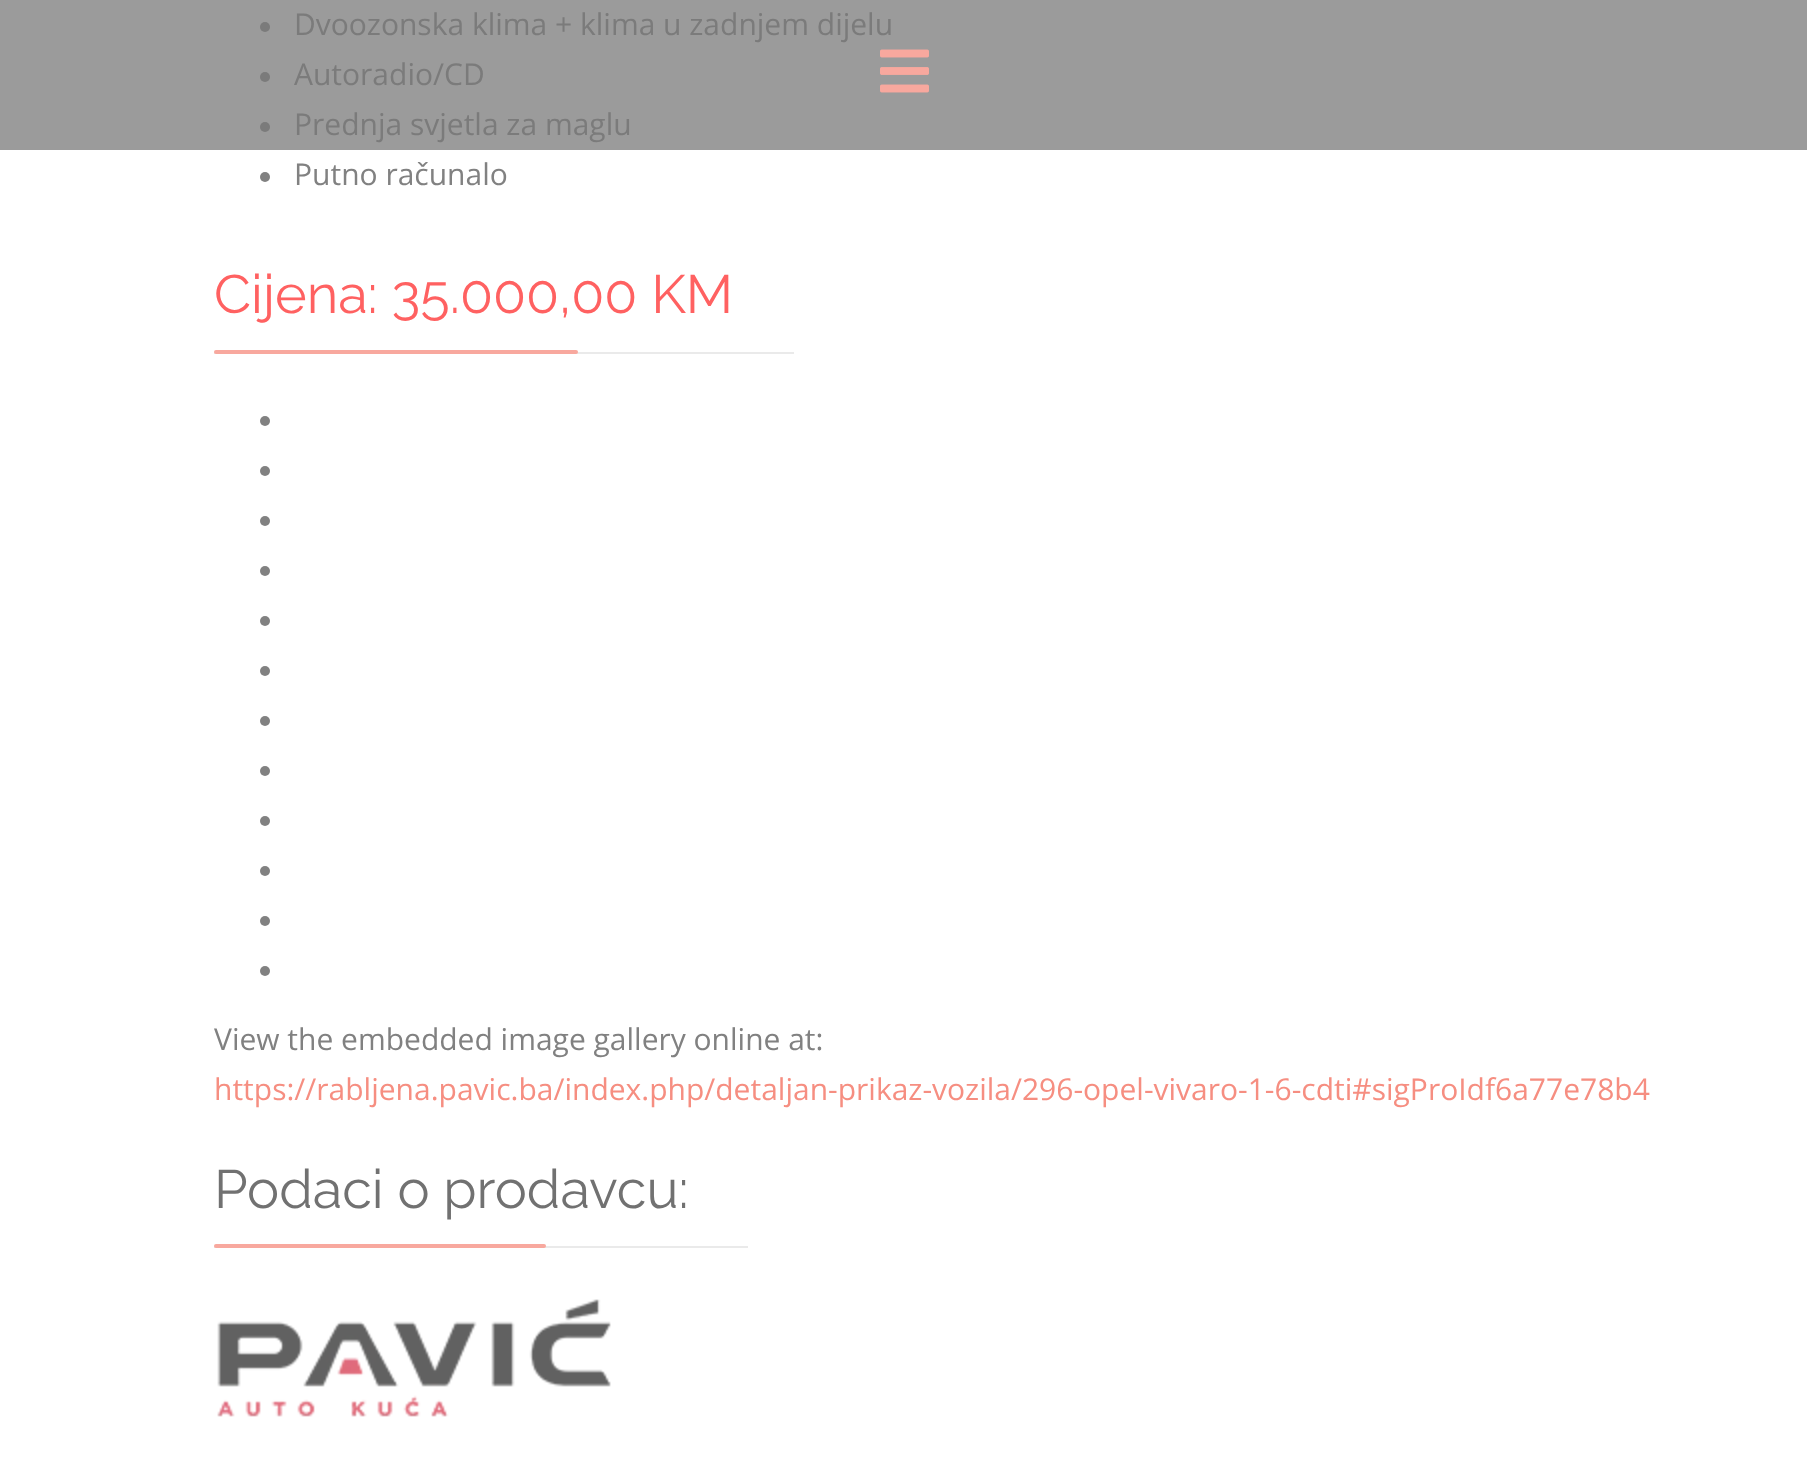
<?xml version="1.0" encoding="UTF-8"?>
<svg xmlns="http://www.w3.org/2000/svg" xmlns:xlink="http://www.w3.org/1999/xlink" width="1807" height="1467">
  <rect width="100%" height="100%" fill="#ffffff" />
  <rect width="1807" height="150" fill="#9b9b9b" />
  <circle cx="265" cy="27" r="5" fill="#7b7b7b" />
  <circle cx="265" cy="77" r="5" fill="#7b7b7b" />
  <circle cx="265" cy="127" r="5" fill="#7b7b7b" />
  <circle cx="265" cy="177" r="5" fill="#818181" />
  <rect x="214" y="352" width="580" height="2" fill="#eaeaea" />
  <rect x="214" y="350" width="364" height="4" rx="2" fill="#f8a89e" />
  <circle cx="265" cy="421" r="5" fill="#818181" />
  <circle cx="265" cy="471" r="5" fill="#818181" />
  <circle cx="265" cy="521" r="5" fill="#818181" />
  <circle cx="265" cy="571" r="5" fill="#818181" />
  <circle cx="265" cy="621" r="5" fill="#818181" />
  <circle cx="265" cy="671" r="5" fill="#818181" />
  <circle cx="265" cy="721" r="5" fill="#818181" />
  <circle cx="265" cy="771" r="5" fill="#818181" />
  <circle cx="265" cy="821" r="5" fill="#818181" />
  <circle cx="265" cy="871" r="5" fill="#818181" />
  <circle cx="265" cy="921" r="5" fill="#818181" />
  <circle cx="265" cy="971" r="5" fill="#818181" />
  <rect x="214" y="1246" width="534" height="2" fill="#eaeaea" />
  <rect x="214" y="1244" width="332" height="4" rx="2" fill="#f8a89e" />
  <image x="217" y="1299" width="394" height="118" xlink:href="image1.png" />
  <image x="880" y="49" width="49" height="44" xlink:href="image2.png" />
  <text x="294" y="35" style="font-family: Open Sans; font-size: 30px; fill: #7b7b7b">Dvoozonska klima + klima u zadnjem dijelu</text>
  <text x="294" y="85" style="font-family: Open Sans; font-size: 30px; fill: #7b7b7b">Autoradio/CD</text>
  <text x="294" y="135" style="font-family: Open Sans; font-size: 30px; fill: #7b7b7b">Prednja svjetla za maglu</text>
  <text x="294" y="185" style="font-family: Open Sans; font-size: 30px; fill: #818181">Putno računalo</text>
  <text x="214" y="313" style="font-family: Raleway; font-size: 54px; fill: #ff6161">Cijena: 35.000,00 KM</text>
  <text x="214" y="1050" style="font-family: Open Sans; font-size: 30px; fill: #818181">View the embedded image gallery online at:</text>
  <text x="214" y="1100" style="font-family: Open Sans; font-size: 30px; fill: #f68e81">https://rabljena.pavic.ba/index.php/detaljan-prikaz-vozila/296-opel-vivaro-1-6-cdti#sigProIdf6a77e78b4</text>
  <text x="214" y="1208" style="font-family: Raleway; font-size: 54px; fill: #717171">Podaci o prodavcu:</text>
</svg>
